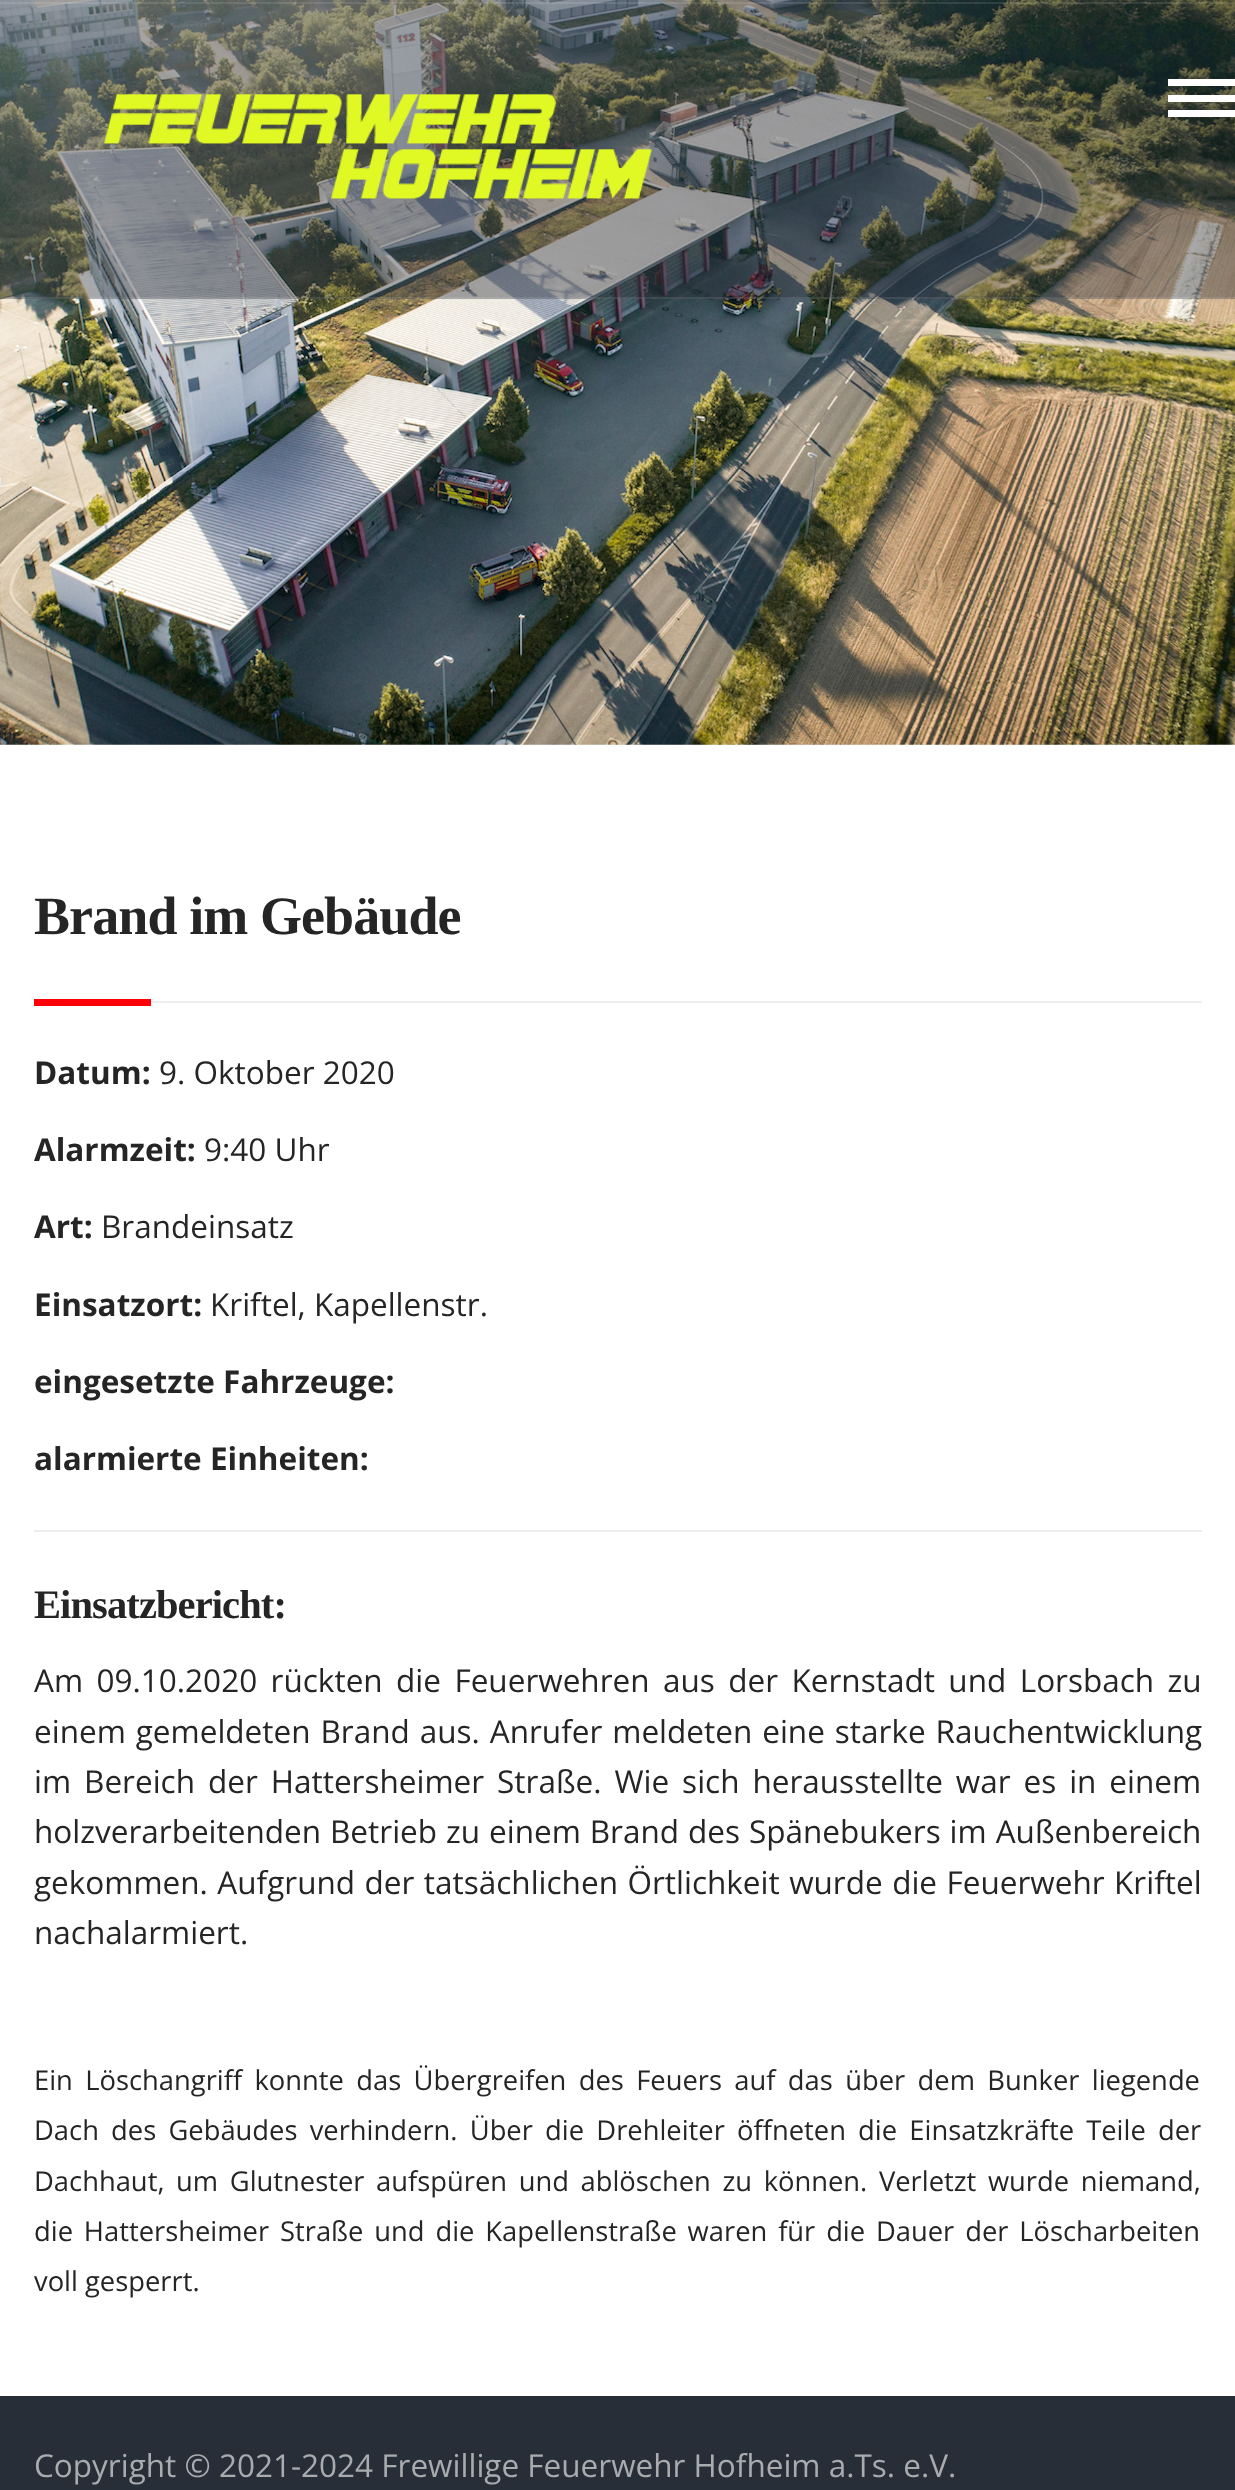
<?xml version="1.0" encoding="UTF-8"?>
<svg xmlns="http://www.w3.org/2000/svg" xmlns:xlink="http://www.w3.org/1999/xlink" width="1235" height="2490">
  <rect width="100%" height="100%" fill="#ffffff" />
  <image x="0" y="0" width="1235" height="745" xlink:href="image1.png" />
  <rect width="1235" height="2" fill="#272e38" fill-opacity="0.4" />
  <rect y="2" width="1235" height="297" fill="#272e38" fill-opacity="0.4" />
  <rect y="2" width="1235" height="2" fill="#ffffff" fill-opacity="0.1" />
  <rect y="297" width="1235" height="2" fill="#ffffff" fill-opacity="0.1" />
  <image x="104" y="94" width="548" height="105" xlink:href="image2.png" />
  <rect x="1168" y="95" width="67" height="7" fill="#ffffff" />
  <rect x="1168" y="79" width="67" height="7" fill="#ffffff" />
  <rect x="1168" y="110" width="67" height="7" fill="#ffffff" />
  <rect x="34" y="999" width="117" height="7" fill="#ff0008" />
  <rect x="151" y="1001" width="1051" height="2" fill="#eeeeee" />
  <rect x="34" y="1530" width="1168" height="2" fill="#eeeeee" />
  <rect y="2396" width="1235" height="94" fill="#272e38" />
  <text x="34" y="934" style="font-family: Liberation Serif; font-size: 54px; font-weight: bold; letter-spacing: -0.9px; fill: #252525">Brand im Gebäude</text>
  <text x="34" y="1084" style="font-family: Open Sans; font-size: 31.5px; font-weight: bold; fill: #252525">Datum:</text>
  <text x="159" y="1084" style="font-family: Open Sans; font-size: 31.5px; fill: #252525">9. Oktober 2020</text>
  <text x="34" y="1161" style="font-family: Open Sans; font-size: 31.5px; font-weight: bold; fill: #252525">Alarmzeit:</text>
  <text x="204" y="1161" style="font-family: Open Sans; font-size: 31.5px; fill: #252525">9:40 Uhr</text>
  <text x="34" y="1238" style="font-family: Open Sans; font-size: 31.5px; font-weight: bold; fill: #252525">Art:</text>
  <text x="101" y="1238" style="font-family: Open Sans; font-size: 31.5px; fill: #252525">Brandeinsatz</text>
  <text x="34" y="1316" style="font-family: Open Sans; font-size: 31.5px; font-weight: bold; fill: #252525">Einsatzort:</text>
  <text x="210" y="1316" style="font-family: Open Sans; font-size: 31.5px; fill: #252525">Kriftel, Kapellenstr.</text>
  <text x="34" y="1393" style="font-family: Open Sans; font-size: 31.5px; font-weight: bold; fill: #252525">eingesetzte Fahrzeuge:</text>
  <text x="34" y="1470" style="font-family: Open Sans; font-size: 31.5px; font-weight: bold; fill: #252525">alarmierte Einheiten:</text>
  <text x="34" y="1618" style="font-family: Liberation Serif; font-size: 40.5px; font-weight: bold; letter-spacing: -0.9px; fill: #252525">Einsatzbericht:</text>
  <text x="34" y="1692" word-spacing="5.25" style="font-family: Open Sans; font-size: 31.5px; fill: #252525">Am 09.10.2020 rückten die Feuerwehren aus der Kernstadt und Lorsbach zu</text>
  <text x="34" y="1743" word-spacing="1.75" style="font-family: Open Sans; font-size: 31.5px; fill: #252525">einem gemeldeten Brand aus. Anrufer meldeten eine starke Rauchentwicklung</text>
  <text x="34" y="1793" word-spacing="4.75" style="font-family: Open Sans; font-size: 31.5px; fill: #252525">im Bereich der Hattersheimer Straße. Wie sich herausstellte war es in einem</text>
  <text x="34" y="1843" word-spacing="0.75" style="font-family: Open Sans; font-size: 31.5px; fill: #252525">holzverarbeitenden Betrieb zu einem Brand des Spänebukers im Außenbereich</text>
  <text x="34" y="1894" word-spacing="1.25" style="font-family: Open Sans; font-size: 31.5px; fill: #252525">gekommen. Aufgrund der tatsächlichen Örtlichkeit wurde die Feuerwehr Kriftel</text>
  <text x="34" y="1944" style="font-family: Open Sans; font-size: 31.5px; fill: #252525">nachalarmiert.</text>
  <text x="34" y="2090" word-spacing="5.25" style="font-family: Open Sans; font-size: 27.35px; fill: #252525">Ein Löschangriff konnte das Übergreifen des Feuers auf das über dem Bunker liegende</text>
  <text x="34" y="2140" word-spacing="5.1" style="font-family: Open Sans; font-size: 27.35px; fill: #252525">Dach des Gebäudes verhindern. Über die Drehleiter öffneten die Einsatzkräfte Teile der</text>
  <text x="34" y="2191" word-spacing="4.5" style="font-family: Open Sans; font-size: 27.35px; fill: #252525">Dachhaut, um Glutnester aufspüren und ablöschen zu können. Verletzt wurde niemand,</text>
  <text x="34" y="2241" word-spacing="3.75" style="font-family: Open Sans; font-size: 27.35px; fill: #252525">die Hattersheimer Straße und die Kapellenstraße waren für die Dauer der Löscharbeiten</text>
  <text x="34" y="2291" style="font-family: Open Sans; font-size: 27.35px; fill: #252525">voll gesperrt.</text>
  <text x="34" y="2477" style="font-family: Open Sans; font-size: 31.5px; fill: #a9abaf">Copyright © 2021-2024 Frewillige Feuerwehr Hofheim a.Ts. e.V.</text>
</svg>
